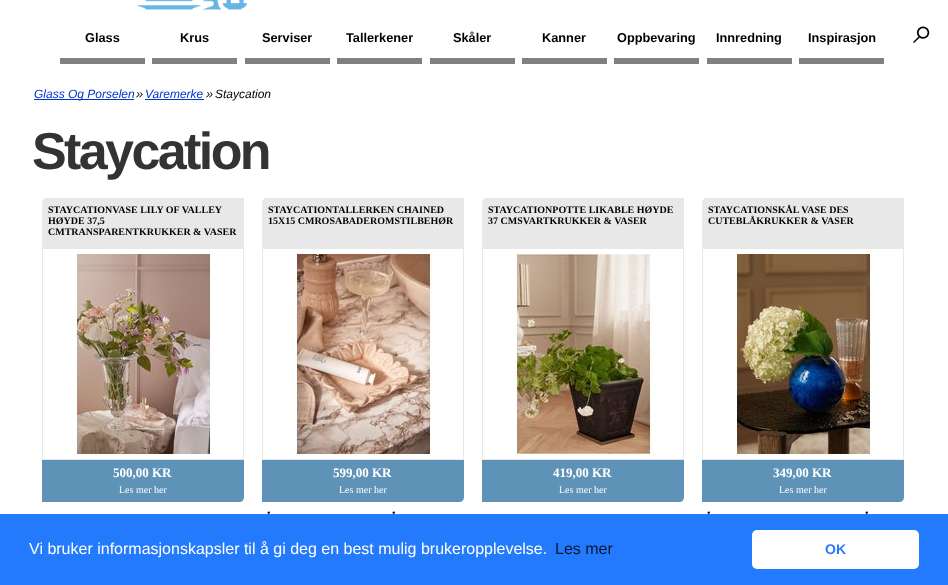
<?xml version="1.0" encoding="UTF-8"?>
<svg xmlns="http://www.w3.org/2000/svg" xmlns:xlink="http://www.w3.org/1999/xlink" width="948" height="585">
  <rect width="100%" height="100%" fill="#ffffff" />
  <image x="137" y="0" width="110" height="10" xlink:href="image1.png" />
  <rect x="60" y="58" width="85" height="6" fill="#808080" />
  <rect x="152" y="58" width="85" height="6" fill="#808080" />
  <rect x="245" y="58" width="85" height="6" fill="#808080" />
  <rect x="337" y="58" width="85" height="6" fill="#808080" />
  <rect x="430" y="58" width="85" height="6" fill="#808080" />
  <rect x="522" y="58" width="85" height="6" fill="#808080" />
  <rect x="614" y="58" width="85" height="6" fill="#808080" />
  <rect x="707" y="58" width="85" height="6" fill="#808080" />
  <rect x="799" y="58" width="85" height="6" fill="#808080" />
  <rect x="34" y="99" width="100" height="1" fill="#0033cc" />
  <rect x="145" y="99" width="59" height="1" fill="#0033cc" />
  <path d="M 47 198 h 197 v 50 h -202 v -45 c 0 -3 2 -5 5 -5 z" fill="#e8e8e8" />
  <rect x="42.5" y="248.5" width="201" height="211" fill="none" stroke="#e8e8e8" />
  <image x="75" y="254" width="137" height="200" xlink:href="image2.png" />
  <path d="M 42 460 h 202 v 37 c 0 3 -2 5 -5 5 h -197 z" fill="#5e93b7" />
  <path d="M 267 198 h 197 v 50 h -202 v -45 c 0 -3 2 -5 5 -5 z" fill="#e8e8e8" />
  <rect x="262.5" y="248.5" width="201" height="211" fill="none" stroke="#e8e8e8" />
  <image x="295" y="254" width="140" height="200" xlink:href="image3.png" />
  <path d="M 262 460 h 202 v 37 c 0 3 -2 5 -5 5 h -197 z" fill="#5e93b7" />
  <path d="M 487 198 h 197 v 50 h -202 v -45 c 0 -3 2 -5 5 -5 z" fill="#e8e8e8" />
  <rect x="482.5" y="248.5" width="201" height="211" fill="none" stroke="#e8e8e8" />
  <image x="515" y="254" width="140" height="200" xlink:href="image4.png" />
  <path d="M 482 460 h 202 v 37 c 0 3 -2 5 -5 5 h -197 z" fill="#5e93b7" />
  <path d="M 707 198 h 197 v 50 h -202 v -45 c 0 -3 2 -5 5 -5 z" fill="#e8e8e8" />
  <rect x="702.5" y="248.5" width="201" height="211" fill="none" stroke="#e8e8e8" />
  <image x="735" y="254" width="143" height="200" xlink:href="image5.png" />
  <path d="M 702 460 h 202 v 37 c 0 3 -2 5 -5 5 h -197 z" fill="#5e93b7" />
  <rect y="514" width="948" height="71" fill="#237afc" />
  <rect x="752" y="530" width="167" height="39" rx="5" fill="#ffffff" />
  <text x="85" y="42" style="font-family: Liberation Sans; font-size: 12.75px; font-weight: bold; fill: #000000">Glass</text>
  <text x="180" y="42" style="font-family: Liberation Sans; font-size: 12.75px; font-weight: bold; fill: #000000">Krus</text>
  <text x="262" y="42" style="font-family: Liberation Sans; font-size: 12.75px; font-weight: bold; fill: #000000">Serviser</text>
  <text x="346" y="42" style="font-family: Liberation Sans; font-size: 12.75px; font-weight: bold; fill: #000000">Tallerkener</text>
  <text x="453" y="42" style="font-family: Liberation Sans; font-size: 12.75px; font-weight: bold; fill: #000000">Skåler</text>
  <text x="542" y="42" style="font-family: Liberation Sans; font-size: 12.75px; font-weight: bold; fill: #000000">Kanner</text>
  <text x="617" y="42" style="font-family: Liberation Sans; font-size: 12.75px; font-weight: bold; fill: #000000">Oppbevaring</text>
  <text x="716" y="42" style="font-family: Liberation Sans; font-size: 12.75px; font-weight: bold; fill: #000000">Innredning</text>
  <text x="808" y="42" style="font-family: Liberation Sans; font-size: 12.75px; font-weight: bold; fill: #000000">Inspirasjon</text>
  <text x="913" y="43" style="font-family: FreeSerif; font-size: 36px; fill: #000000">⌕</text>
  <text x="34" y="98" style="font-family: Liberation Sans; font-size: 12px; font-style: italic; fill: #0033cc">Glass Og Porselen</text>
  <text x="136" y="98" style="font-family: Liberation Sans; font-size: 12.75px; font-style: italic; fill: #000000">»</text>
  <text x="145" y="98" style="font-family: Liberation Sans; font-size: 12px; font-style: italic; fill: #0033cc">Varemerke</text>
  <text x="206" y="98" style="font-family: Liberation Sans; font-size: 12.75px; font-style: italic; fill: #000000">»</text>
  <text x="215" y="98" style="font-family: Liberation Sans; font-size: 12px; font-style: italic; fill: #000000">Staycation</text>
  <text x="32" y="169" style="font-family: Liberation Sans; font-size: 52px; font-weight: bold; letter-spacing: -2.6px; fill: #333333">Staycation</text>
  <text x="48" y="213" style="font-family: Liberation Serif; font-size: 10px; font-weight: bold; fill: #000000">STAYCATIONVASE LILY OF VALLEY</text>
  <text x="48" y="224" style="font-family: Liberation Serif; font-size: 10px; font-weight: bold; fill: #000000">HØYDE 37,5</text>
  <text x="48" y="235" style="font-family: Liberation Serif; font-size: 10px; font-weight: bold; fill: #000000">CMTRANSPARENTKRUKKER &amp; VASER</text>
  <text x="113" y="477" style="font-family: Liberation Serif; font-size: 13px; font-weight: bold; fill: #ffffff">500,00 KR</text>
  <text x="119" y="493" style="font-family: Liberation Serif; font-size: 10px; fill: #ffffff">Les mer her</text>
  <text x="268" y="213" style="font-family: Liberation Serif; font-size: 10px; font-weight: bold; fill: #000000">STAYCATIONTALLERKEN CHAINED</text>
  <text x="268" y="224" style="font-family: Liberation Serif; font-size: 10px; font-weight: bold; fill: #000000">15X15 CMROSABADEROMSTILBEHØR</text>
  <text x="333" y="477" style="font-family: Liberation Serif; font-size: 13px; font-weight: bold; fill: #ffffff">599,00 KR</text>
  <text x="339" y="493" style="font-family: Liberation Serif; font-size: 10px; fill: #ffffff">Les mer her</text>
  <text x="267" y="516" style="font-family: Liberation Serif; font-size: 10px; fill: #000000">•</text>
  <text x="392" y="516" style="font-family: Liberation Serif; font-size: 10px; fill: #000000">•</text>
  <text x="488" y="213" style="font-family: Liberation Serif; font-size: 10px; font-weight: bold; fill: #000000">STAYCATIONPOTTE LIKABLE HØYDE</text>
  <text x="488" y="224" style="font-family: Liberation Serif; font-size: 10px; font-weight: bold; fill: #000000">37 CMSVARTKRUKKER &amp; VASER</text>
  <text x="553" y="477" style="font-family: Liberation Serif; font-size: 13px; font-weight: bold; fill: #ffffff">419,00 KR</text>
  <text x="559" y="493" style="font-family: Liberation Serif; font-size: 10px; fill: #ffffff">Les mer her</text>
  <text x="708" y="213" style="font-family: Liberation Serif; font-size: 10px; font-weight: bold; fill: #000000">STAYCATIONSKÅL VASE DES</text>
  <text x="708" y="224" style="font-family: Liberation Serif; font-size: 10px; font-weight: bold; fill: #000000">CUTEBLÅKRUKKER &amp; VASER</text>
  <text x="773" y="477" style="font-family: Liberation Serif; font-size: 13px; font-weight: bold; fill: #ffffff">349,00 KR</text>
  <text x="779" y="493" style="font-family: Liberation Serif; font-size: 10px; fill: #ffffff">Les mer her</text>
  <text x="707" y="516" style="font-family: Liberation Serif; font-size: 10px; fill: #000000">•</text>
  <text x="865" y="516" style="font-family: Liberation Serif; font-size: 10px; fill: #000000">•</text>
  <text x="29" y="554" style="font-family: Liberation Sans; font-size: 16px; fill: #ffffff">Vi bruker informasjonskapsler til å gi deg en best mulig brukeropplevelse.</text>
  <text x="555" y="554" style="font-family: Liberation Sans; font-size: 16px; fill: #071832">Les mer</text>
  <text x="825" y="554" style="font-family: Liberation Sans; font-size: 14px; font-weight: bold; fill: #237afc">OK</text>
</svg>
